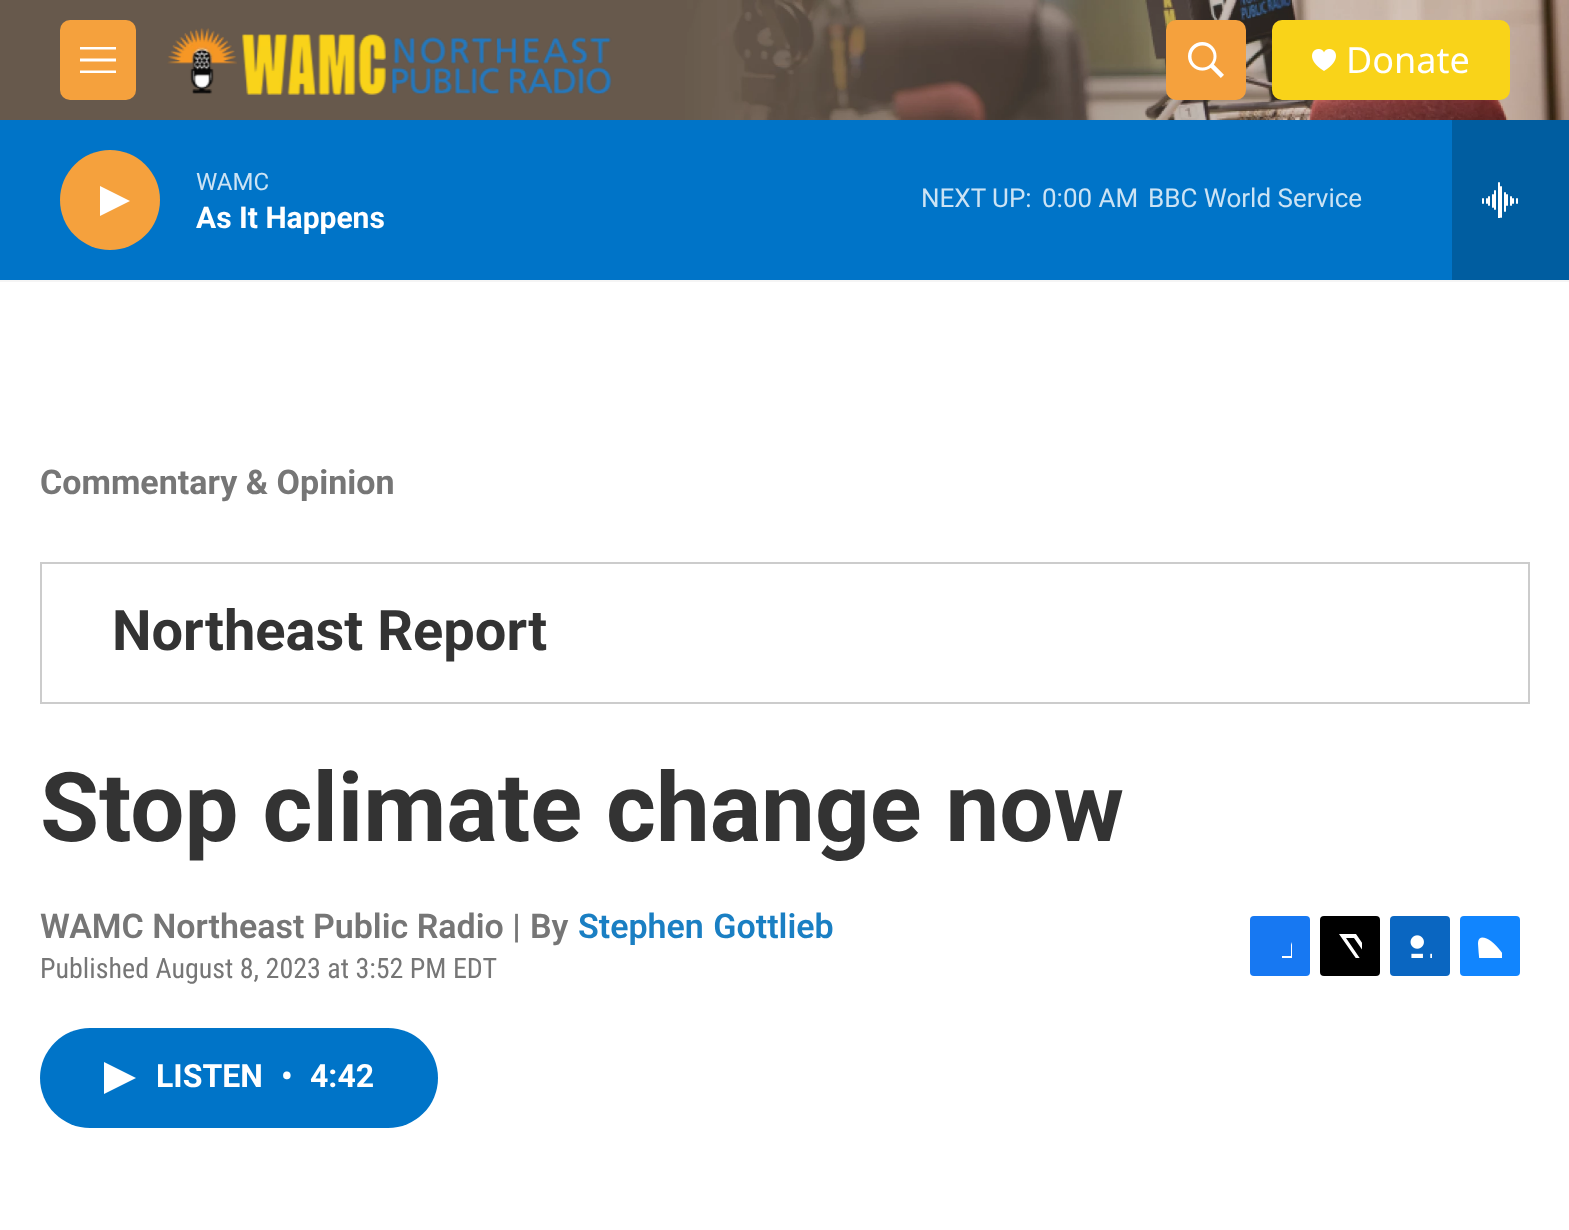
<?xml version="1.0" encoding="UTF-8"?>
<svg xmlns="http://www.w3.org/2000/svg" xmlns:xlink="http://www.w3.org/1999/xlink" width="1569" height="1230">
  <defs>
    <clipPath id="clip1"><rect x="1268" y="934" width="24" height="24" /></clipPath>
    <clipPath id="clip2"><rect x="1338" y="934" width="24" height="24" /></clipPath>
  </defs>
  <rect width="100%" height="100%" fill="#ffffff" />
  <rect y="280" width="1569" height="2" fill="#f5f5f5" />
  <image x="0" y="0" width="1569" height="120" xlink:href="image1.png" />
  <rect x="60" y="20" width="76" height="80" rx="10" fill="#f5a13d" />
  <path d="M 80 61.5 v -3 h 36 v 3 z m 0 -12 v -2.5 h 36 v 2.5 z m 0 23.5 v -2.5 h 36 v 2.5 z" fill="#ffffff" fill-rule="evenodd" />
  <image x="167" y="28" width="445" height="67" xlink:href="image2.png" />
  <rect x="1166" y="20" width="80" height="80" rx="10" fill="#f5a13d" />
  <image x="1188" y="42" width="36" height="36" xlink:href="image3.png" />
  <rect x="1272" y="20" width="238" height="80" rx="10" fill="#f9d319" />
  <image x="1312" y="49" width="24" height="22" xlink:href="image4.png" />
  <rect y="120" width="1452" height="160" fill="#0074c8" />
  <circle cx="110" cy="200" r="50" fill="#f5a13d" />
  <path d="M 100 186 l 30 15 l -30 15 z" fill="#ffffff" />
  <rect x="1452" y="120" width="117" height="160" fill="#005da0" />
  <image x="1482" y="182" width="36" height="36" xlink:href="image5.png" />
  <rect x="41" y="563" width="1488" height="140" fill="none" stroke="#cccccc" stroke-width="2" />
  <rect x="1250" y="916" width="60" height="60" rx="4" fill="#1778f2" />
  <g clip-path="url(#clip1)">
    <path d="M 1301 976 h -10 v -10 h -9 v -10 h 9 v -11 c 2 -9 11 -11 19 -10 v 9 c -11 0 -9 3 -9 12 h 9 v 5 l -1 5 h -8 z" fill="#ffffff" />
  </g>
  <rect x="1320" y="916" width="60" height="60" rx="4" fill="#000000" />
  <g clip-path="url(#clip2)">
    <path d="M 1374 959 l 6 9 c 0 2 1 5 -1 6 l -25 -36 h -8 l 26 38 h -5 l -3 -5 l -4 5 h -6 l 8 -9 l -23 -33 h 17 l 15 22 l 9 -10 v 6 z" fill="#ffffff" />
  </g>
  <rect x="1390" y="916" width="60" height="60" rx="4" fill="#0a66c1" />
  <image x="1410" y="935" width="22" height="23" xlink:href="image6.png" />
  <rect x="1460" y="916" width="60" height="60" rx="4" fill="#1185fe" />
  <image x="1478" y="937" width="24" height="21" xlink:href="image7.png" />
  <rect x="40" y="1028" width="398" height="100" rx="50" fill="#0074c8" />
  <path d="M 104 1062 l 32 16 l -32 16 z" fill="#ffffff" />
  <text x="1346" y="73" style="font-family: Noto Sans; font-size: 36px; fill: #ffffff">Donate</text>
  <text x="196" y="190" style="font-family: Roboto; font-size: 24px; fill: #cce3f4">WAMC</text>
  <text x="196" y="228" style="font-family: 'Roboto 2'; font-size: 30px; font-weight: bold; fill: #ffffff">As It Happens</text>
  <text x="921" y="207" style="font-family: Roboto; font-size: 26px; fill: #cce3f4">NEXT UP:</text>
  <text x="1042" y="207" style="font-family: Roboto; font-size: 26px; fill: #cce3f4">0:00 AM</text>
  <text x="1148" y="207" style="font-family: Roboto; font-size: 26px; fill: #cce3f4">BBC World Service</text>
  <text x="40" y="494" style="font-family: Roboto; font-size: 34px; font-weight: bold; fill: #767676">Commentary &amp; Opinion</text>
  <text x="112" y="650" style="font-family: 'Roboto 2'; font-size: 56px; font-weight: bold; fill: #333333">Northeast Report</text>
  <text x="40" y="841" style="font-family: Roboto; font-size: 96px; font-weight: bold; fill: #333333">Stop climate change now</text>
  <text x="40" y="938" style="font-family: Roboto; font-size: 34px; font-weight: 600; fill: #767676">WAMC Northeast Public Radio |</text>
  <text x="530" y="938" style="font-family: Roboto; font-size: 34px; font-weight: 600; fill: #767676">By</text>
  <text x="578" y="938" word-spacing="1" style="font-family: Roboto; font-size: 34px; font-weight: 600; fill: #1a7fc3">Stephen Gottlieb</text>
  <text x="40" y="978" style="font-family: Roboto Condensed; font-size: 28px; fill: #767676">Published August 8, 2023 at 3:52 PM EDT</text>
  <text x="156" y="1087" style="font-family: 'Roboto 2'; font-size: 32px; font-weight: bold; fill: #ffffff">LISTEN</text>
  <text x="281" y="1087" style="font-family: 'Roboto 2'; font-size: 32px; font-weight: bold; fill: #ffffff">•</text>
  <text x="310" y="1087" style="font-family: 'Roboto 2'; font-size: 32px; font-weight: bold; fill: #ffffff">4:42</text>
</svg>
